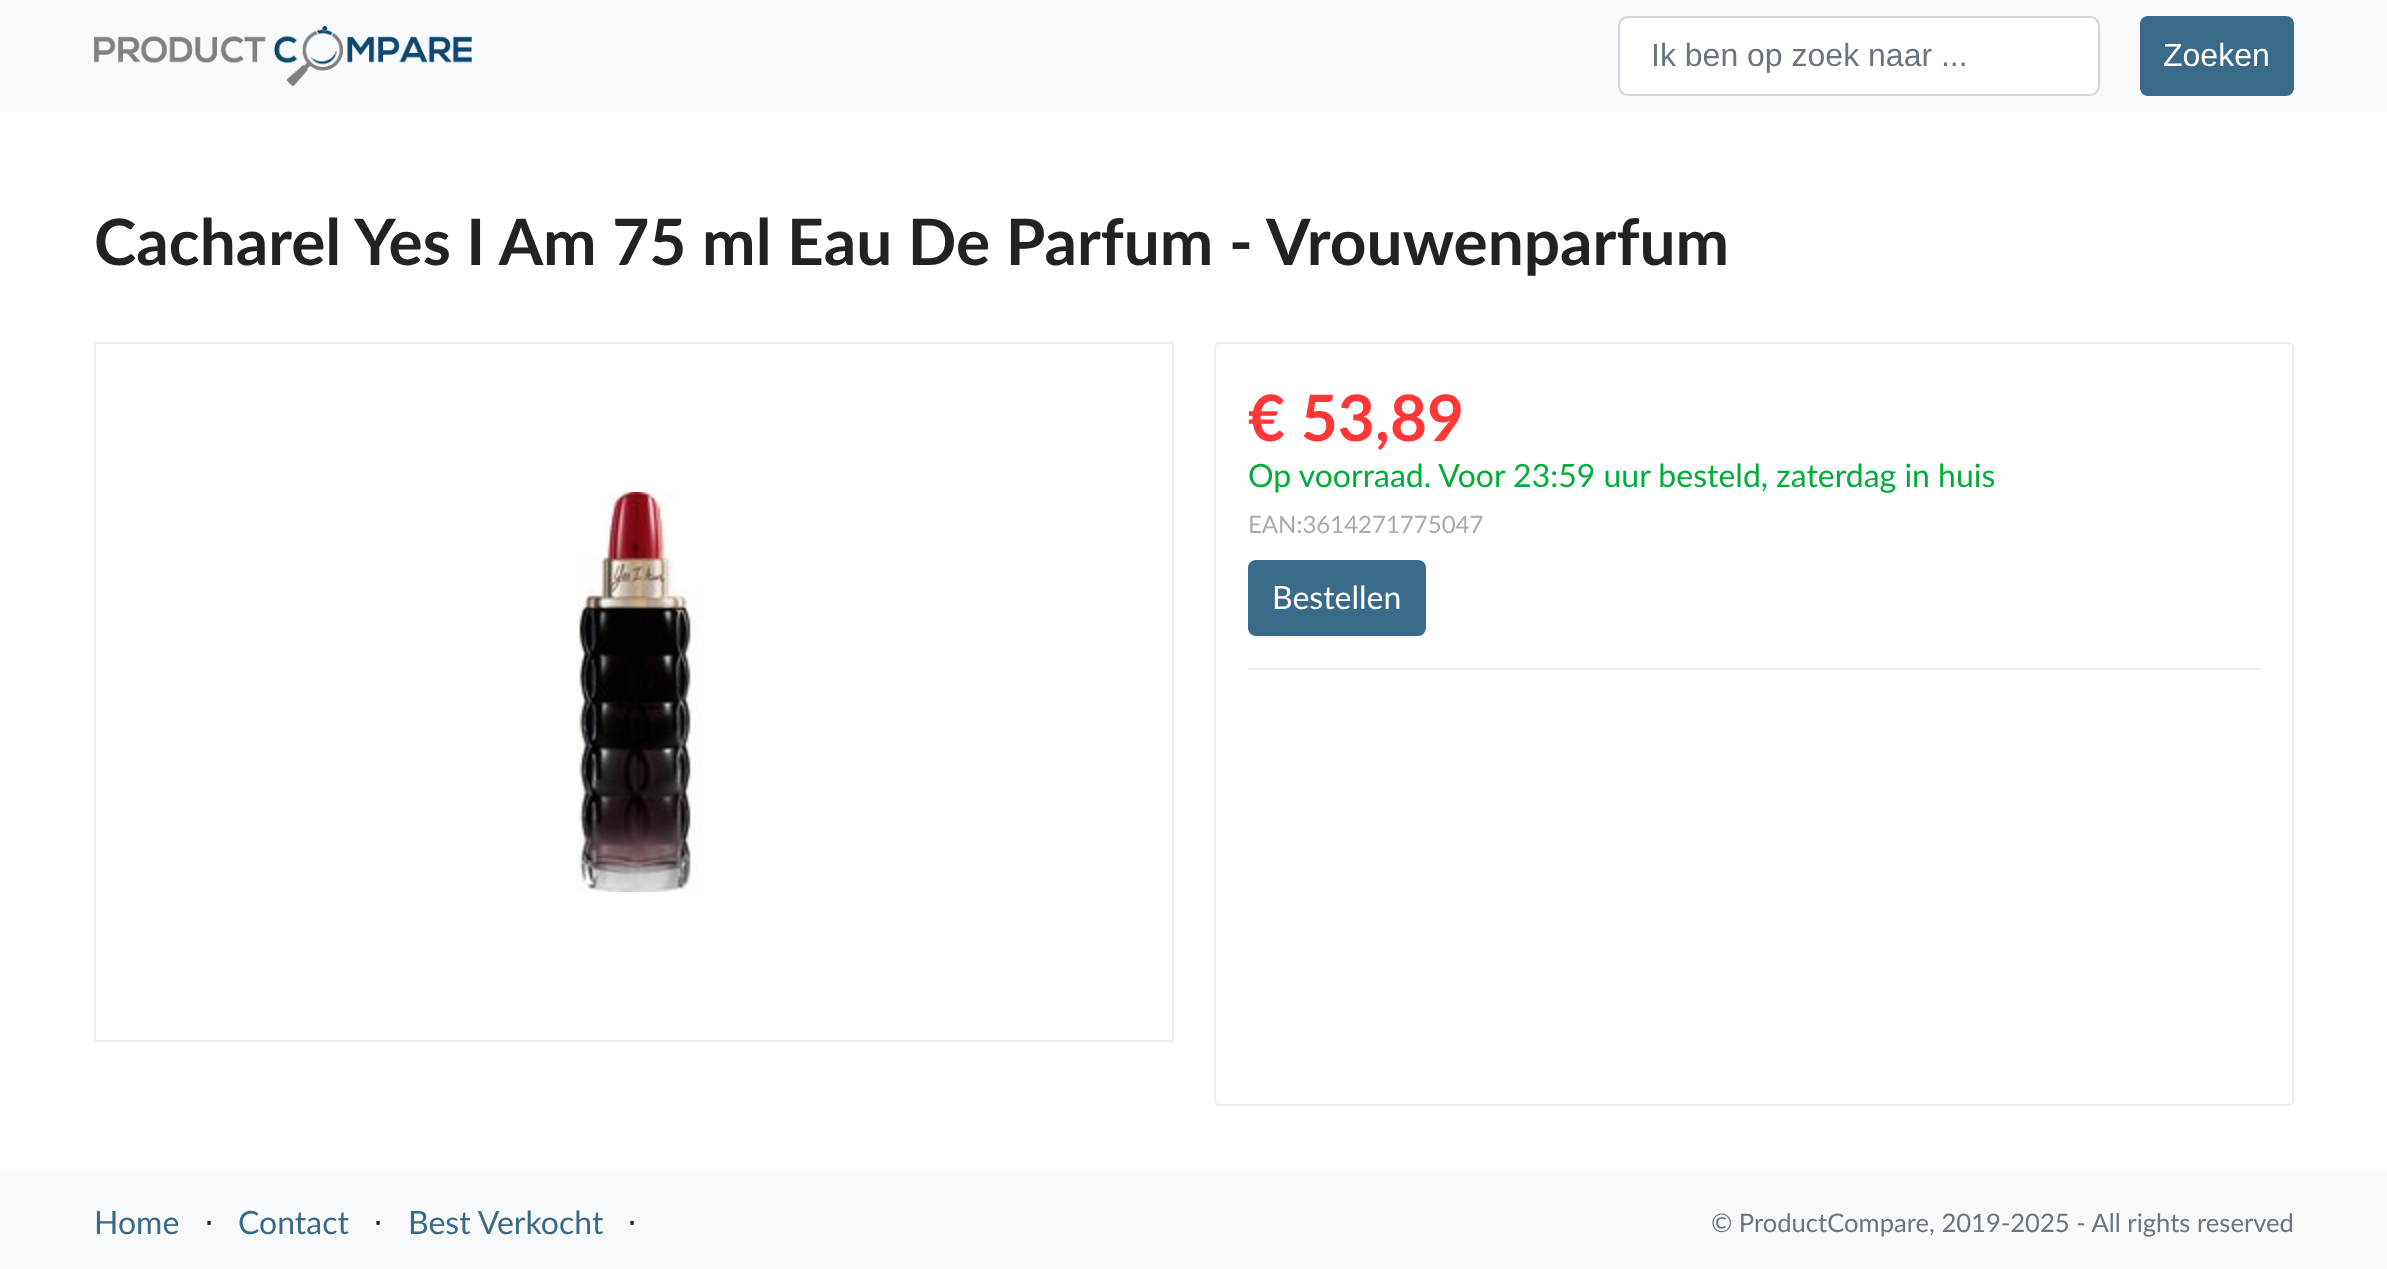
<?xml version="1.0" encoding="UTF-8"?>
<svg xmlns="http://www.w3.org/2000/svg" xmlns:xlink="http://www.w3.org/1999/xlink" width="2387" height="1269">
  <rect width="100%" height="100%" fill="#ffffff" />
  <rect width="2387" height="112" fill="#f8f9fa" />
  <image x="94" y="26" width="378" height="60" xlink:href="image1.png" />
  <rect x="1619" y="17" width="480" height="78" rx="9" fill="#ffffff" stroke="#ced4da" stroke-width="2" />
  <rect x="2140" y="16" width="154" height="80" rx="8" fill="#396a8a" />
  <rect x="95" y="343" width="1078" height="698" fill="none" stroke="#eeeeee" stroke-width="2" />
  <image x="576" y="492" width="127" height="400" xlink:href="image2.png" />
  <rect x="1215" y="343" width="1078" height="762" rx="5" fill="none" stroke="#eeeeee" stroke-width="2" />
  <rect x="1248" y="668" width="1012" height="2" fill="#eeeeee" />
  <rect x="1248" y="560" width="178" height="76" rx="8" fill="#396a8a" />
  <rect y="1170" width="2387" height="99" fill="#f8f9fa" />
  <text x="1651" y="66" style="font-family: Liberation Sans; font-size: 32px; fill: #6c757d">Ik ben op zoek naar ...</text>
  <text x="2163" y="66" style="font-family: Liberation Sans; font-size: 32px; fill: #ffffff">Zoeken</text>
  <text x="94" y="265" style="font-family: Lato; font-size: 64px; font-weight: bold; fill: #222222">Cacharel Yes I Am 75 ml Eau De Parfum - Vrouwenparfum</text>
  <text x="1248" y="441" style="font-family: Lato; font-size: 64px; font-weight: bold; fill: #ff3737">€ 53,89</text>
  <text x="1248" y="487" style="font-family: Lato; font-size: 32px; fill: #01ac3a">Op voorraad. Voor 23:59 uur besteld, zaterdag in huis</text>
  <text x="1248" y="533" style="font-family: Lato; font-size: 24px; fill: #aaaaaa">EAN:3614271775047</text>
  <text x="1272" y="609" style="font-family: Lato; font-size: 32px; fill: #ffffff">Bestellen</text>
  <text x="94" y="1234" style="font-family: Lato; font-size: 32px; fill: #396a8a">Home</text>
  <text x="204" y="1234" style="font-family: DejaVu Sans; font-size: 32px; fill: #222222">⋅</text>
  <text x="238" y="1234" style="font-family: Lato; font-size: 32px; fill: #396a8a">Contact</text>
  <text x="373" y="1234" style="font-family: DejaVu Sans; font-size: 32px; fill: #222222">⋅</text>
  <text x="408" y="1234" style="font-family: Lato; font-size: 32px; fill: #396a8a">Best Verkocht</text>
  <text x="627" y="1234" style="font-family: DejaVu Sans; font-size: 32px; fill: #222222">⋅</text>
  <text x="1711" y="1232" style="font-family: Lato; font-size: 25.6px; fill: #6c757d">© ProductCompare, 2019-2025 - All rights reserved</text>
</svg>
